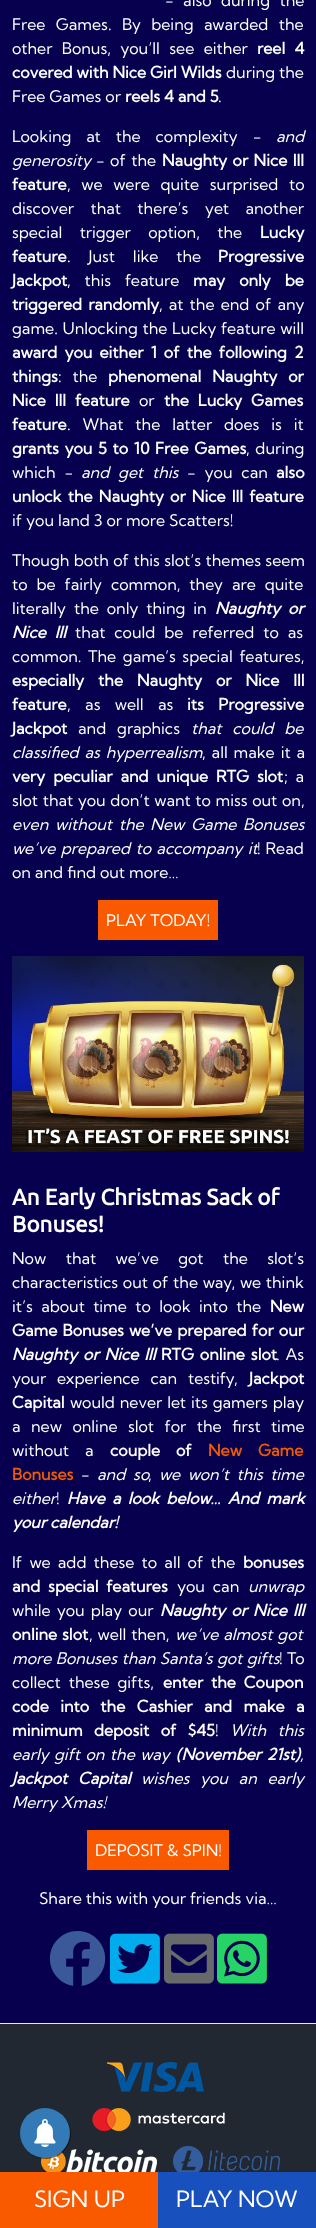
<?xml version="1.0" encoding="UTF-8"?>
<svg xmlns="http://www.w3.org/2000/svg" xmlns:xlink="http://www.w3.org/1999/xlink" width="316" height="2228">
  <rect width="100%" height="100%" fill="#06004f" />
  <rect x="98" y="900" width="120" height="40" fill="#f95a00" />
  <image x="12" y="956" width="292" height="196" xlink:href="image1.png" />
  <rect x="87" y="1830" width="142" height="40" fill="#f95a00" />
  <image x="49" y="1931" width="57" height="55" xlink:href="image2.png" />
  <image x="110" y="1933" width="50" height="51" xlink:href="image3.png" />
  <image x="164" y="1933" width="50" height="51" xlink:href="image4.png" />
  <image x="217" y="1933" width="50" height="51" xlink:href="image5.png" />
  <rect y="2024" width="316" height="148" fill="#212832" />
  <rect y="2023" width="316" height="1" fill="#eaeaea" />
  <image x="107" y="2062" width="97" height="30" xlink:href="image6.png" />
  <image x="92" y="2108" width="133" height="23" xlink:href="image7.png" />
  <image x="41" y="2149" width="116" height="23" xlink:href="image8.png" />
  <image x="173" y="2146" width="107" height="26" xlink:href="image9.png" />
  <rect x="21" y="2109" width="50" height="50" rx="25" fill="#000000" fill-opacity="0.5" filter="blur(0.5px)" />
  <circle cx="45" cy="2133" r="25" fill="#337ab7" />
  <image x="34" y="2119" width="22" height="28" xlink:href="image10.png" />
  <rect y="2172" width="158" height="56" fill="#f95a00" />
  <rect x="158" y="2172" width="158" height="56" fill="#1850bd" />
  <text x="165" y="6" word-spacing="5.5" style="font-family: Kumbh Sans; font-size: 16px; fill: #ffffff">- also during the</text>
  <text x="12" y="30" word-spacing="6.5" style="font-family: Kumbh Sans; font-size: 16px; fill: #ffffff">Free Games. By being awarded the</text>
  <text x="12" y="54" word-spacing="5.5" style="font-family: Kumbh Sans; font-size: 16px; fill: #ffffff">other Bonus, you’ll see either</text>
  <text x="257" y="54" word-spacing="5.5" style="font-family: Kumbh Sans; font-size: 16px; font-weight: bold; fill: #ffffff">reel 4</text>
  <text x="12" y="78" style="font-family: Kumbh Sans; font-size: 16px; font-weight: bold; fill: #ffffff">covered with Nice Girl Wilds</text>
  <text x="226" y="78" style="font-family: Kumbh Sans; font-size: 16px; fill: #ffffff">during the</text>
  <text x="12" y="102" style="font-family: Kumbh Sans; font-size: 16px; fill: #ffffff">Free Games or</text>
  <text x="125" y="102" style="font-family: Kumbh Sans; font-size: 16px; font-weight: bold; fill: #ffffff">reels 4 and 5</text>
  <text x="218" y="102" style="font-family: Kumbh Sans; font-size: 16px; fill: #ffffff">.</text>
  <text x="12" y="142" word-spacing="11" style="font-family: Kumbh Sans; font-size: 16px; fill: #ffffff">Looking at the complexity -</text>
  <text x="276" y="142" style="font-family: Kumbh Sans; font-size: 16px; font-style: italic; fill: #ffffff">and</text>
  <text x="12" y="166" style="font-family: Kumbh Sans; font-size: 16px; font-style: italic; fill: #ffffff">generosity</text>
  <text x="96" y="166" word-spacing="1.5" style="font-family: Kumbh Sans; font-size: 16px; fill: #ffffff">- of the</text>
  <text x="162" y="166" word-spacing="1.5" style="font-family: Kumbh Sans; font-size: 16px; font-weight: bold; fill: #ffffff">Naughty or Nice III</text>
  <text x="12" y="190" style="font-family: Kumbh Sans; font-size: 16px; font-weight: bold; fill: #ffffff">feature</text>
  <text x="67" y="190" word-spacing="6.75" style="font-family: Kumbh Sans; font-size: 16px; fill: #ffffff">, we were quite surprised to</text>
  <text x="12" y="214" word-spacing="12.5" style="font-family: Kumbh Sans; font-size: 16px; fill: #ffffff">discover that there’s yet another</text>
  <text x="12" y="238" word-spacing="13.5" style="font-family: Kumbh Sans; font-size: 16px; fill: #ffffff">special trigger option, the</text>
  <text x="260" y="238" style="font-family: Kumbh Sans; font-size: 16px; font-weight: bold; fill: #ffffff">Lucky</text>
  <text x="12" y="262" style="font-family: Kumbh Sans; font-size: 16px; font-weight: bold; fill: #ffffff">feature</text>
  <text x="67" y="262" word-spacing="14" style="font-family: Kumbh Sans; font-size: 16px; fill: #ffffff">. Just like the</text>
  <text x="218" y="262" style="font-family: Kumbh Sans; font-size: 16px; font-weight: bold; fill: #ffffff">Progressive</text>
  <text x="12" y="286" style="font-family: Kumbh Sans; font-size: 16px; font-weight: bold; fill: #ffffff">Jackpot</text>
  <text x="67" y="286" word-spacing="10" style="font-family: Kumbh Sans; font-size: 16px; fill: #ffffff">, this feature</text>
  <text x="193" y="286" word-spacing="10" style="font-family: Kumbh Sans; font-size: 16px; font-weight: bold; fill: #ffffff">may only be</text>
  <text x="12" y="310" word-spacing="2.25" style="font-family: Kumbh Sans; font-size: 16px; font-weight: bold; fill: #ffffff">triggered randomly</text>
  <text x="159" y="310" word-spacing="2.25" style="font-family: Kumbh Sans; font-size: 16px; fill: #ffffff">, at the end of any</text>
  <text x="12" y="334" word-spacing="0.75" style="font-family: Kumbh Sans; font-size: 16px; fill: #ffffff">game. Unlocking the Lucky feature will</text>
  <text x="12" y="358" word-spacing="3.25" style="font-family: Kumbh Sans; font-size: 16px; font-weight: bold; fill: #ffffff">award you either 1 of the following 2</text>
  <text x="12" y="382" style="font-family: Kumbh Sans; font-size: 16px; font-weight: bold; fill: #ffffff">things</text>
  <text x="58" y="382" word-spacing="7" style="font-family: Kumbh Sans; font-size: 16px; fill: #ffffff">: the</text>
  <text x="108" y="382" word-spacing="7" style="font-family: Kumbh Sans; font-size: 16px; font-weight: bold; fill: #ffffff">phenomenal Naughty or</text>
  <text x="12" y="406" word-spacing="5" style="font-family: Kumbh Sans; font-size: 16px; font-weight: bold; fill: #ffffff">Nice III feature</text>
  <text x="139" y="406" style="font-family: Kumbh Sans; font-size: 16px; fill: #ffffff">or</text>
  <text x="164" y="406" word-spacing="5" style="font-family: Kumbh Sans; font-size: 16px; font-weight: bold; fill: #ffffff">the Lucky Games</text>
  <text x="12" y="430" style="font-family: Kumbh Sans; font-size: 16px; font-weight: bold; fill: #ffffff">feature</text>
  <text x="67" y="430" word-spacing="8" style="font-family: Kumbh Sans; font-size: 16px; fill: #ffffff">. What the latter does is it</text>
  <text x="12" y="454" word-spacing="1.75" style="font-family: Kumbh Sans; font-size: 16px; font-weight: bold; fill: #ffffff">grants you 5 to 10 Free Games</text>
  <text x="246" y="454" word-spacing="1.75" style="font-family: Kumbh Sans; font-size: 16px; fill: #ffffff">, during</text>
  <text x="12" y="478" word-spacing="5" style="font-family: Kumbh Sans; font-size: 16px; fill: #ffffff">which -</text>
  <text x="81" y="478" word-spacing="5" style="font-family: Kumbh Sans; font-size: 16px; font-style: italic; fill: #ffffff">and get this</text>
  <text x="187" y="478" word-spacing="5" style="font-family: Kumbh Sans; font-size: 16px; fill: #ffffff">- you can</text>
  <text x="276" y="478" style="font-family: Kumbh Sans; font-size: 16px; font-weight: bold; fill: #ffffff">also</text>
  <text x="12" y="502" word-spacing="2.25" style="font-family: Kumbh Sans; font-size: 16px; font-weight: bold; fill: #ffffff">unlock the Naughty or Nice III feature</text>
  <text x="12" y="526" style="font-family: Kumbh Sans; font-size: 16px; fill: #ffffff">if you land 3 or more Scatters!</text>
  <text x="12" y="566" word-spacing="0.5" style="font-family: Kumbh Sans; font-size: 16px; fill: #ffffff">Though both of this slot’s themes seem</text>
  <text x="12" y="590" word-spacing="5" style="font-family: Kumbh Sans; font-size: 16px; fill: #ffffff">to be fairly common, they are quite</text>
  <text x="12" y="614" word-spacing="4" style="font-family: Kumbh Sans; font-size: 16px; fill: #ffffff">literally the only thing in</text>
  <text x="215" y="614" word-spacing="4" style="font-family: Kumbh Sans; font-size: 16px; font-weight: bold; font-style: italic; fill: #ffffff">Naughty or</text>
  <text x="12" y="638" word-spacing="5" style="font-family: Kumbh Sans; font-size: 16px; font-weight: bold; font-style: italic; fill: #ffffff">Nice III</text>
  <text x="75" y="638" word-spacing="5" style="font-family: Kumbh Sans; font-size: 16px; fill: #ffffff">that could be referred to as</text>
  <text x="12" y="662" word-spacing="2.75" style="font-family: Kumbh Sans; font-size: 16px; fill: #ffffff">common. The game’s special features,</text>
  <text x="12" y="686" word-spacing="10" style="font-family: Kumbh Sans; font-size: 16px; font-weight: bold; fill: #ffffff">especially the Naughty or Nice III</text>
  <text x="12" y="710" style="font-family: Kumbh Sans; font-size: 16px; font-weight: bold; fill: #ffffff">feature</text>
  <text x="67" y="710" word-spacing="10.5" style="font-family: Kumbh Sans; font-size: 16px; fill: #ffffff">, as well as</text>
  <text x="187" y="710" word-spacing="10.5" style="font-family: Kumbh Sans; font-size: 16px; font-weight: bold; fill: #ffffff">its Progressive</text>
  <text x="12" y="734" style="font-family: Kumbh Sans; font-size: 16px; font-weight: bold; fill: #ffffff">Jackpot</text>
  <text x="78" y="734" word-spacing="7" style="font-family: Kumbh Sans; font-size: 16px; fill: #ffffff">and graphics</text>
  <text x="191" y="734" word-spacing="7" style="font-family: Kumbh Sans; font-size: 16px; font-style: italic; fill: #ffffff">that could be</text>
  <text x="12" y="758" word-spacing="2" style="font-family: Kumbh Sans; font-size: 16px; font-style: italic; fill: #ffffff">classified as hyperrealism</text>
  <text x="202" y="758" word-spacing="2" style="font-family: Kumbh Sans; font-size: 16px; fill: #ffffff">, all make it a</text>
  <text x="12" y="782" word-spacing="4" style="font-family: Kumbh Sans; font-size: 16px; font-weight: bold; fill: #ffffff">very peculiar and unique RTG slot</text>
  <text x="284" y="782" word-spacing="4" style="font-family: Kumbh Sans; font-size: 16px; fill: #ffffff">; a</text>
  <text x="12" y="806" word-spacing="0.75" style="font-family: Kumbh Sans; font-size: 16px; fill: #ffffff">slot that you don’t want to miss out on,</text>
  <text x="12" y="830" word-spacing="2.75" style="font-family: Kumbh Sans; font-size: 16px; font-style: italic; fill: #ffffff">even without the New Game Bonuses</text>
  <text x="12" y="854" word-spacing="1.5" style="font-family: Kumbh Sans; font-size: 16px; font-style: italic; fill: #ffffff">we’ve prepared to accompany it</text>
  <text x="257" y="854" word-spacing="1" style="font-family: Kumbh Sans; font-size: 16px; fill: #ffffff">! Read</text>
  <text x="12" y="878" style="font-family: Kumbh Sans; font-size: 16px; fill: #ffffff">on and find out more…</text>
  <text x="106" y="926" style="font-family: Kumbh Sans; font-size: 16px; fill: #ffffff">PLAY TODAY!</text>
  <text x="12" y="1205" style="font-family: Ubuntu; font-size: 22.4px; font-weight: bold; fill: #ffffff">An Early Christmas Sack of</text>
  <text x="12" y="1232" style="font-family: Ubuntu; font-size: 22.4px; font-weight: bold; fill: #ffffff">Bonuses!</text>
  <text x="12" y="1264" word-spacing="15.5" style="font-family: Kumbh Sans; font-size: 16px; fill: #ffffff">Now that we’ve got the slot’s</text>
  <text x="12" y="1288" word-spacing="0.75" style="font-family: Kumbh Sans; font-size: 16px; fill: #ffffff">characteristics out of the way, we think</text>
  <text x="12" y="1312" word-spacing="4.5" style="font-family: Kumbh Sans; font-size: 16px; fill: #ffffff">it’s about time to look into the</text>
  <text x="270" y="1312" style="font-family: Kumbh Sans; font-size: 16px; font-weight: bold; fill: #ffffff">New</text>
  <text x="12" y="1336" word-spacing="1.25" style="font-family: Kumbh Sans; font-size: 16px; font-weight: bold; fill: #ffffff">Game Bonuses we’ve prepared for our</text>
  <text x="12" y="1360" word-spacing="2" style="font-family: Kumbh Sans; font-size: 16px; font-weight: bold; font-style: italic; fill: #ffffff">Naughty or Nice III</text>
  <text x="161" y="1360" word-spacing="2" style="font-family: Kumbh Sans; font-size: 16px; font-weight: bold; fill: #ffffff">RTG online slot</text>
  <text x="276" y="1360" word-spacing="2" style="font-family: Kumbh Sans; font-size: 16px; fill: #ffffff">. As</text>
  <text x="12" y="1384" word-spacing="7" style="font-family: Kumbh Sans; font-size: 16px; fill: #ffffff">your experience can testify,</text>
  <text x="249" y="1384" style="font-family: Kumbh Sans; font-size: 16px; font-weight: bold; fill: #ffffff">Jackpot</text>
  <text x="12" y="1408" style="font-family: Kumbh Sans; font-size: 16px; font-weight: bold; fill: #ffffff">Capital</text>
  <text x="70" y="1408" word-spacing="1" style="font-family: Kumbh Sans; font-size: 16px; fill: #ffffff">would never let its gamers play</text>
  <text x="12" y="1432" word-spacing="6.5" style="font-family: Kumbh Sans; font-size: 16px; fill: #ffffff">a new online slot for the first time</text>
  <text x="12" y="1456" word-spacing="12" style="font-family: Kumbh Sans; font-size: 16px; fill: #ffffff">without a</text>
  <text x="110" y="1456" word-spacing="12" style="font-family: Kumbh Sans; font-size: 16px; font-weight: bold; fill: #ffffff">couple of</text>
  <text x="208" y="1456" word-spacing="12" style="font-family: Kumbh Sans; font-size: 16px; font-weight: bold; fill: #f25b00">New Game</text>
  <text x="12" y="1480" style="font-family: Kumbh Sans; font-size: 16px; font-weight: bold; fill: #f25b00">Bonuses</text>
  <text x="81" y="1480" style="font-family: Kumbh Sans; font-size: 16px; fill: #ffffff">-</text>
  <text x="97" y="1480" word-spacing="4" style="font-family: Kumbh Sans; font-size: 16px; font-style: italic; fill: #ffffff">and so</text>
  <text x="159" y="1480" word-spacing="3.5" style="font-family: Kumbh Sans; font-size: 16px; font-style: italic; fill: #ffffff">we won’t this time</text>
  <text x="148" y="1480" style="font-family: Kumbh Sans; font-size: 16px; fill: #ffffff">,</text>
  <text x="12" y="1504" style="font-family: Kumbh Sans; font-size: 16px; font-style: italic; fill: #ffffff">either</text>
  <text x="56" y="1504" style="font-family: Kumbh Sans; font-size: 16px; fill: #ffffff">!</text>
  <text x="67" y="1504" word-spacing="3.25" style="font-family: Kumbh Sans; font-size: 16px; font-weight: bold; font-style: italic; fill: #ffffff">Have a look below… And mark</text>
  <text x="12" y="1528" style="font-family: Kumbh Sans; font-size: 16px; font-weight: bold; font-style: italic; fill: #ffffff">your calendar!</text>
  <text x="12" y="1568" word-spacing="3.25" style="font-family: Kumbh Sans; font-size: 16px; fill: #ffffff">If we add these to all of the</text>
  <text x="243" y="1568" style="font-family: Kumbh Sans; font-size: 16px; font-weight: bold; fill: #ffffff">bonuses</text>
  <text x="12" y="1592" word-spacing="4" style="font-family: Kumbh Sans; font-size: 16px; font-weight: bold; fill: #ffffff">and special features</text>
  <text x="177" y="1592" word-spacing="4" style="font-family: Kumbh Sans; font-size: 16px; fill: #ffffff">you can</text>
  <text x="248" y="1592" style="font-family: Kumbh Sans; font-size: 16px; font-style: italic; fill: #ffffff">unwrap</text>
  <text x="12" y="1616" word-spacing="2.25" style="font-family: Kumbh Sans; font-size: 16px; fill: #ffffff">while you play our</text>
  <text x="160" y="1616" word-spacing="2.25" style="font-family: Kumbh Sans; font-size: 16px; font-weight: bold; font-style: italic; fill: #ffffff">Naughty or Nice III</text>
  <text x="12" y="1640" word-spacing="1" style="font-family: Kumbh Sans; font-size: 16px; font-weight: bold; fill: #ffffff">online slot</text>
  <text x="89" y="1640" word-spacing="1" style="font-family: Kumbh Sans; font-size: 16px; fill: #ffffff">, well then,</text>
  <text x="175" y="1640" word-spacing="1" style="font-family: Kumbh Sans; font-size: 16px; font-style: italic; fill: #ffffff">we’ve almost got</text>
  <text x="12" y="1664" word-spacing="0.5" style="font-family: Kumbh Sans; font-size: 16px; font-style: italic; fill: #ffffff">more Bonuses than Santa’s got gifts</text>
  <text x="279" y="1664" word-spacing="0.5" style="font-family: Kumbh Sans; font-size: 16px; fill: #ffffff">! To</text>
  <text x="12" y="1688" word-spacing="4" style="font-family: Kumbh Sans; font-size: 16px; fill: #ffffff">collect these gifts,</text>
  <text x="163" y="1688" word-spacing="4" style="font-family: Kumbh Sans; font-size: 16px; font-weight: bold; fill: #ffffff">enter the Coupon</text>
  <text x="12" y="1712" word-spacing="7.5" style="font-family: Kumbh Sans; font-size: 16px; font-weight: bold; fill: #ffffff">code into the Cashier and make a</text>
  <text x="12" y="1736" word-spacing="7.5" style="font-family: Kumbh Sans; font-size: 16px; font-weight: bold; fill: #ffffff">minimum deposit of $45</text>
  <text x="215" y="1736" style="font-family: Kumbh Sans; font-size: 16px; fill: #ffffff">!</text>
  <text x="230" y="1736" word-spacing="7.5" style="font-family: Kumbh Sans; font-size: 16px; font-style: italic; fill: #ffffff">With this</text>
  <text x="12" y="1760" word-spacing="1.5" style="font-family: Kumbh Sans; font-size: 16px; font-style: italic; fill: #ffffff">early gift on the way</text>
  <text x="176" y="1760" word-spacing="1.5" style="font-family: Kumbh Sans; font-size: 16px; font-weight: bold; font-style: italic; fill: #ffffff">(November 21st)</text>
  <text x="300" y="1760" style="font-family: Kumbh Sans; font-size: 16px; font-style: italic; fill: #ffffff">,</text>
  <text x="12" y="1784" word-spacing="6.75" style="font-family: Kumbh Sans; font-size: 16px; font-weight: bold; font-style: italic; fill: #ffffff">Jackpot Capital</text>
  <text x="141" y="1784" word-spacing="6.75" style="font-family: Kumbh Sans; font-size: 16px; font-style: italic; fill: #ffffff">wishes you an early</text>
  <text x="12" y="1808" style="font-family: Kumbh Sans; font-size: 16px; font-style: italic; fill: #ffffff">Merry Xmas!</text>
  <text x="95" y="1856" style="font-family: Kumbh Sans; font-size: 16px; fill: #ffffff">DEPOSIT &amp; SPIN!</text>
  <text x="39" y="1904" style="font-family: Kumbh Sans; font-size: 16px; fill: #ffffff">Share this with your friends via…</text>
  <text x="34" y="2207" style="font-family: Kumbh Sans; font-size: 22.4px; fill: #ffffff">SIGN UP</text>
  <text x="176" y="2207" style="font-family: Kumbh Sans; font-size: 22.4px; fill: #ffffff">PLAY NOW</text>
</svg>
